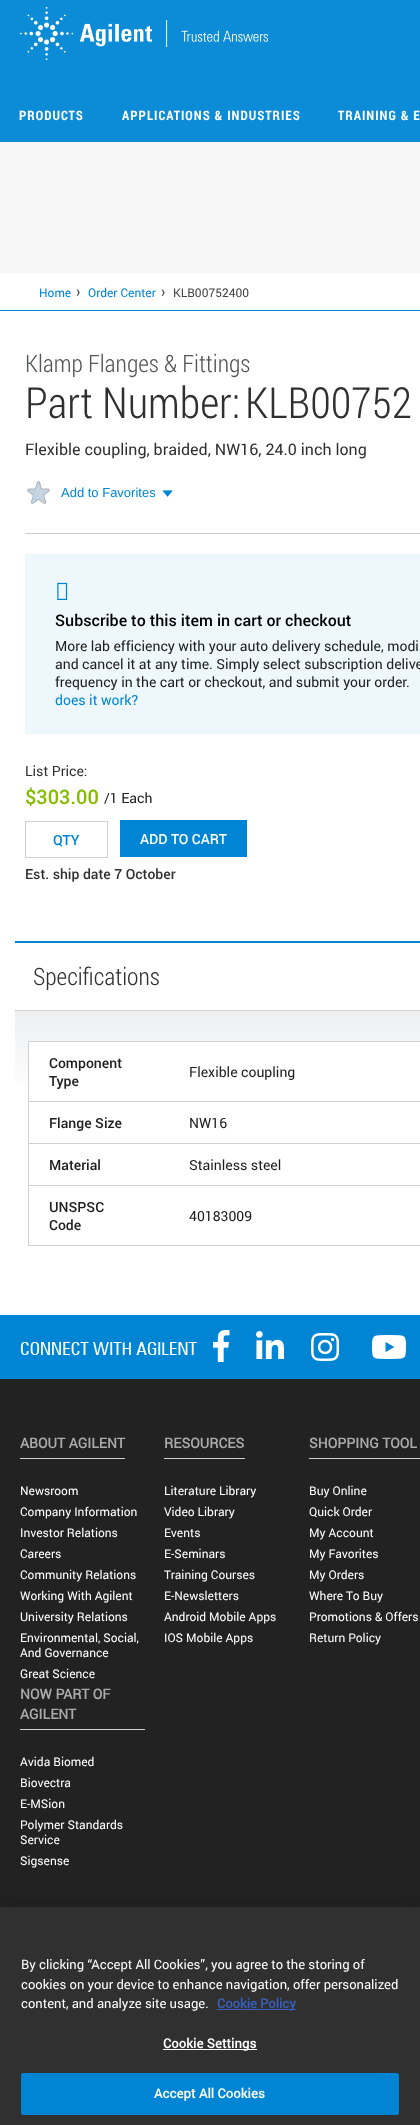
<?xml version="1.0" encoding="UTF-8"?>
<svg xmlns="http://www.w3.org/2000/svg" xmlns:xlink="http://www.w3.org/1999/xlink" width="420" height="2125">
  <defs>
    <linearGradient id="g1" gradientUnits="userSpaceOnUse" x1="360" y1="1011" x2="360" y2="1286"><stop offset="0" stop-color="#edeff0" /><stop offset="0.3" stop-color="#ffffff" /></linearGradient>
  </defs>
  <rect width="100%" height="100%" fill="#f6f6f6" />
  <rect width="420" height="142" fill="#0c8bd7" />
  <image x="20" y="7" width="248" height="53" xlink:href="image1.png" />
  <rect y="273" width="420" height="1042" fill="#ffffff" />
  <rect y="310" width="420" height="1" fill="#0085d5" />
  <image x="76" y="289" width="4" height="7" xlink:href="image2.png" />
  <image x="161" y="289" width="4" height="7" xlink:href="image2.png" />
  <rect x="25" y="533" width="395" height="1" fill="#cccccc" />
  <image x="27" y="481" width="23" height="23" xlink:href="image3.png" />
  <image x="162" y="490" width="11" height="7" xlink:href="image4.png" />
  <rect x="25" y="554" width="395" height="180" fill="#eef7fc" />
  <image x="57" y="582" width="11" height="18" xlink:href="image5.png" />
  <rect x="25.5" y="821.5" width="82" height="36" fill="none" stroke="#d2d2d2" />
  <rect x="120" y="820" width="127" height="37" fill="#0085d5" />
  <rect x="15" y="941" width="405" height="2" fill="#0085d5" />
  <rect x="15" y="1011" width="405" height="71" fill="url(#g1)" />
  <rect x="15" y="1010" width="405" height="1" fill="#d0d0ce" />
  <rect x="28.5" y="1041.5" width="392" height="204" fill="none" stroke="#d0d0ce" />
  <rect x="29" y="1042" width="391" height="40" fill="#ffffff" />
  <rect x="29" y="1101" width="391" height="1" fill="#d0d0ce" />
  <rect x="29" y="1143" width="391" height="1" fill="#d0d0ce" />
  <rect x="29" y="1185" width="391" height="1" fill="#d0d0ce" />
  <rect y="1315" width="420" height="64" fill="#0085d5" />
  <image x="20" y="1342" width="177" height="13" xlink:href="image6.png" />
  <image x="213" y="1330" width="17" height="32" xlink:href="image7.png" />
  <image x="256" y="1331" width="28" height="28" xlink:href="image8.png" />
  <image x="311" y="1333" width="29" height="28" xlink:href="image9.png" />
  <image x="371" y="1335" width="36" height="24" xlink:href="image10.png" />
  <rect y="1379" width="420" height="528" fill="#222222" />
  <rect x="20" y="1458" width="105" height="1" fill="#cfcfcf" />
  <rect x="164" y="1458" width="81" height="1" fill="#cfcfcf" />
  <rect x="309" y="1458" width="111" height="1" fill="#cfcfcf" />
  <rect x="20" y="1729" width="125" height="1" fill="#cfcfcf" />
  <rect y="1907" width="420" height="218" fill="#000000" fill-opacity="0.2" filter="blur(9px)" />
  <rect y="1907" width="420" height="218" fill="#303030" />
  <rect x="217" y="2009" width="79" height="1" fill="#3860be" />
  <rect x="163" y="2049" width="94" height="1" fill="#ffffff" />
  <rect x="21.5" y="2073.5" width="377" height="41" rx="1.5" fill="#0085d5" stroke="#0085d5" />
  <text x="19" y="120" style="font-family: Roboto Condensed; font-size: 13px; font-weight: bold; letter-spacing: 1px; fill: #ffffff">PRODUCTS</text>
  <text x="122" y="120" style="font-family: Roboto Condensed; font-size: 13px; font-weight: bold; letter-spacing: 1px; fill: #ffffff">APPLICATIONS &amp; INDUSTRIES</text>
  <text x="338" y="120" style="font-family: Roboto Condensed; font-size: 13px; font-weight: bold; letter-spacing: 1px; fill: #ffffff">TRAINING &amp; E</text>
  <text x="39" y="297" style="font-family: Roboto; font-size: 12px; fill: #0085d5">Home</text>
  <text x="88" y="297" style="font-family: Roboto; font-size: 12px; fill: #0085d5">Order Center</text>
  <text x="173" y="297" style="font-family: Roboto; font-size: 12px; fill: #444444">KLB00752400</text>
  <text x="25" y="372" style="font-family: Roboto Condensed; font-size: 24px; font-weight: 300; fill: #53565a">Klamp Flanges &amp; Fittings</text>
  <text x="25" y="418" style="font-family: Roboto Condensed; font-size: 43px; font-weight: 300; fill: #303030">Part Number:</text>
  <text x="245" y="418" style="font-family: Roboto Condensed; font-size: 43px; font-weight: 300; fill: #303030">KLB00752</text>
  <text x="25" y="455" style="font-family: Roboto; font-size: 16px; fill: #303030">Flexible coupling, braided, NW16, 24.0 inch long</text>
  <text x="61" y="497" style="font-family: Liberation Sans; font-size: 13px; fill: #0085d5">Add to Favorites</text>
  <text x="55" y="626" style="font-family: Roboto; font-size: 16px; font-weight: 500; fill: #000000">Subscribe to this item in cart or checkout</text>
  <text x="55" y="651" style="font-family: Roboto; font-size: 14px; fill: #202020">More lab efficiency with your auto delivery schedule, modi</text>
  <text x="55" y="669" style="font-family: Roboto; font-size: 14px; fill: #202020">and cancel it at any time. Simply select subscription delive</text>
  <text x="55" y="687" style="font-family: Roboto; font-size: 14px; fill: #202020">frequency in the cart or checkout, and submit your order.</text>
  <text x="55" y="705" style="font-family: Roboto; font-size: 14px; fill: #0085d5">does it work?</text>
  <text x="25" y="776" style="font-family: Roboto; font-size: 14px; fill: #303030">List Price:</text>
  <text x="25" y="804" style="font-family: Roboto; font-size: 20px; font-weight: 500; fill: #84bd00">$303.00</text>
  <text x="104" y="803" style="font-family: Roboto; font-size: 14px; fill: #202020">/1 Each</text>
  <text x="53" y="845" style="font-family: Roboto; font-size: 14px; font-weight: 500; fill: #0085d5">QTY</text>
  <text x="140" y="844" style="font-family: Roboto; font-size: 14px; font-weight: 500; fill: #ffffff">ADD TO CART</text>
  <text x="25" y="879" style="font-family: Roboto; font-size: 14px; font-weight: 500; fill: #303030">Est. ship date 7 October</text>
  <text x="33" y="985" style="font-family: Roboto Condensed; font-size: 24px; font-weight: 300; fill: #303030">Specifications</text>
  <text x="49" y="1068" style="font-family: Roboto; font-size: 14px; font-weight: 500; fill: #202020">Component</text>
  <text x="49" y="1086" style="font-family: Roboto; font-size: 14px; font-weight: 500; fill: #202020">Type</text>
  <text x="189" y="1077" style="font-family: Roboto; font-size: 14px; fill: #202020">Flexible coupling</text>
  <text x="49" y="1128" style="font-family: Roboto; font-size: 14px; font-weight: 500; fill: #202020">Flange Size</text>
  <text x="189" y="1128" style="font-family: Roboto; font-size: 14px; fill: #202020">NW16</text>
  <text x="49" y="1170" style="font-family: Roboto; font-size: 14px; font-weight: 500; fill: #202020">Material</text>
  <text x="189" y="1170" style="font-family: Roboto; font-size: 14px; fill: #202020">Stainless steel</text>
  <text x="49" y="1212" style="font-family: Roboto; font-size: 14px; font-weight: 500; fill: #202020">UNSPSC</text>
  <text x="49" y="1230" style="font-family: Roboto; font-size: 14px; font-weight: 500; fill: #202020">Code</text>
  <text x="189" y="1221" style="font-family: Roboto; font-size: 14px; fill: #202020">40183009</text>
  <text x="20" y="1448" style="font-family: Roboto; font-size: 14px; font-weight: bold; fill: #aaaaaa">ABOUT AGILENT</text>
  <text x="20" y="1495" style="font-family: Roboto; font-size: 12px; fill: #ffffff">Newsroom</text>
  <text x="20" y="1516" style="font-family: Roboto; font-size: 12px; fill: #ffffff">Company Information</text>
  <text x="20" y="1537" style="font-family: Roboto; font-size: 12px; fill: #ffffff">Investor Relations</text>
  <text x="20" y="1558" style="font-family: Roboto; font-size: 12px; fill: #ffffff">Careers</text>
  <text x="20" y="1579" style="font-family: Roboto; font-size: 12px; fill: #ffffff">Community Relations</text>
  <text x="20" y="1600" style="font-family: Roboto; font-size: 12px; fill: #ffffff">Working With Agilent</text>
  <text x="20" y="1621" style="font-family: Roboto; font-size: 12px; fill: #ffffff">University Relations</text>
  <text x="20" y="1642" style="font-family: Roboto; font-size: 12px; fill: #ffffff">Environmental, Social,</text>
  <text x="20" y="1657" style="font-family: Roboto; font-size: 12px; fill: #ffffff">And Governance</text>
  <text x="20" y="1678" style="font-family: Roboto; font-size: 12px; fill: #ffffff">Great Science</text>
  <text x="164" y="1448" style="font-family: Roboto; font-size: 14px; font-weight: bold; fill: #aaaaaa">RESOURCES</text>
  <text x="164" y="1495" style="font-family: Roboto; font-size: 12px; fill: #ffffff">Literature Library</text>
  <text x="164" y="1516" style="font-family: Roboto; font-size: 12px; fill: #ffffff">Video Library</text>
  <text x="164" y="1537" style="font-family: Roboto; font-size: 12px; fill: #ffffff">Events</text>
  <text x="164" y="1558" style="font-family: Roboto; font-size: 12px; fill: #ffffff">E-Seminars</text>
  <text x="164" y="1579" style="font-family: Roboto; font-size: 12px; fill: #ffffff">Training Courses</text>
  <text x="164" y="1600" style="font-family: Roboto; font-size: 12px; fill: #ffffff">E-Newsletters</text>
  <text x="164" y="1621" style="font-family: Roboto; font-size: 12px; fill: #ffffff">Android Mobile Apps</text>
  <text x="164" y="1642" style="font-family: Roboto; font-size: 12px; fill: #ffffff">IOS Mobile Apps</text>
  <text x="309" y="1448" style="font-family: Roboto; font-size: 14px; font-weight: bold; fill: #aaaaaa">SHOPPING TOOL</text>
  <text x="309" y="1495" style="font-family: Roboto; font-size: 12px; fill: #ffffff">Buy Online</text>
  <text x="309" y="1516" style="font-family: Roboto; font-size: 12px; fill: #ffffff">Quick Order</text>
  <text x="309" y="1537" style="font-family: Roboto; font-size: 12px; fill: #ffffff">My Account</text>
  <text x="309" y="1558" style="font-family: Roboto; font-size: 12px; fill: #ffffff">My Favorites</text>
  <text x="309" y="1579" style="font-family: Roboto; font-size: 12px; fill: #ffffff">My Orders</text>
  <text x="309" y="1600" style="font-family: Roboto; font-size: 12px; fill: #ffffff">Where To Buy</text>
  <text x="309" y="1621" style="font-family: Roboto; font-size: 12px; fill: #ffffff">Promotions &amp; Offers</text>
  <text x="309" y="1642" style="font-family: Roboto; font-size: 12px; fill: #ffffff">Return Policy</text>
  <text x="20" y="1699" style="font-family: Roboto; font-size: 14px; font-weight: bold; fill: #aaaaaa">NOW PART OF</text>
  <text x="20" y="1719" style="font-family: Roboto; font-size: 14px; font-weight: bold; fill: #aaaaaa">AGILENT</text>
  <text x="20" y="1766" style="font-family: Roboto; font-size: 12px; fill: #ffffff">Avida Biomed</text>
  <text x="20" y="1787" style="font-family: Roboto; font-size: 12px; fill: #ffffff">Biovectra</text>
  <text x="20" y="1808" style="font-family: Roboto; font-size: 12px; fill: #ffffff">E-MSion</text>
  <text x="20" y="1829" style="font-family: Roboto; font-size: 12px; fill: #ffffff">Polymer Standards</text>
  <text x="20" y="1844" style="font-family: Roboto; font-size: 12px; fill: #ffffff">Service</text>
  <text x="20" y="1865" style="font-family: Roboto; font-size: 12px; fill: #ffffff">Sigsense</text>
  <text x="21" y="1969" style="font-family: Roboto; font-size: 13px; fill: #ffffff">By clicking “Accept All Cookies”, you agree to the storing of</text>
  <text x="21" y="1989" style="font-family: Roboto; font-size: 13px; fill: #ffffff">cookies on your device to enhance navigation, offer personalized</text>
  <text x="21" y="2008" style="font-family: Roboto; font-size: 13px; fill: #ffffff">content, and analyze site usage.</text>
  <text x="217" y="2008" style="font-family: Roboto; font-size: 13px; font-weight: bold; fill: #3860be">Cookie Policy</text>
  <text x="163" y="2048" style="font-family: Roboto; font-size: 13px; font-weight: bold; letter-spacing: 0.1px; fill: #ffffff">Cookie Settings</text>
  <text x="154" y="2098" style="font-family: Roboto; font-size: 13px; font-weight: bold; letter-spacing: 0.1px; fill: #ffffff">Accept All Cookies</text>
</svg>
